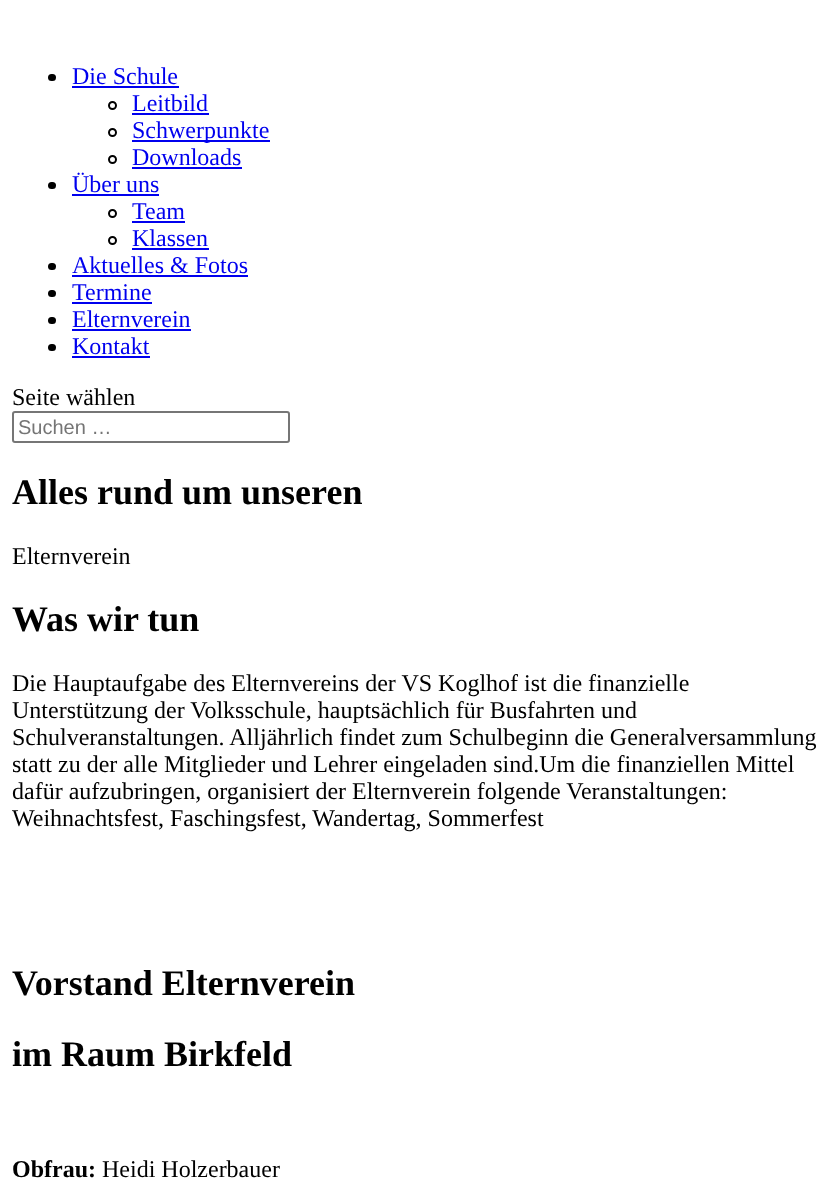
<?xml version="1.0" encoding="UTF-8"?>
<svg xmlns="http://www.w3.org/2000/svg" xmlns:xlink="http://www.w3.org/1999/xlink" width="840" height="1196">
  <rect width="100%" height="100%" fill="#ffffff" />
  <rect x="48" y="74" width="8" height="7" rx="3.5" fill="#000000" />
  <rect x="72" y="86" width="107" height="2" fill="#0000ee" />
  <circle cx="112.5" cy="105.5" r="3.5" fill="none" stroke="#000000" stroke-width="2" />
  <rect x="132" y="113" width="77" height="2" fill="#0000ee" />
  <circle cx="112.5" cy="132.5" r="3.5" fill="none" stroke="#000000" stroke-width="2" />
  <rect x="132" y="140" width="138" height="2" fill="#0000ee" />
  <circle cx="112.5" cy="159.5" r="3.5" fill="none" stroke="#000000" stroke-width="2" />
  <rect x="132" y="167" width="110" height="2" fill="#0000ee" />
  <rect x="48" y="182" width="8" height="7" rx="3.5" fill="#000000" />
  <rect x="72" y="194" width="87" height="2" fill="#0000ee" />
  <circle cx="112.5" cy="213.5" r="3.5" fill="none" stroke="#000000" stroke-width="2" />
  <rect x="132" y="221" width="53" height="2" fill="#0000ee" />
  <circle cx="112.5" cy="240.5" r="3.5" fill="none" stroke="#000000" stroke-width="2" />
  <rect x="132" y="248" width="77" height="2" fill="#0000ee" />
  <rect x="48" y="263" width="8" height="7" rx="3.5" fill="#000000" />
  <rect x="72" y="275" width="176" height="2" fill="#0000ee" />
  <rect x="48" y="290" width="8" height="7" rx="3.5" fill="#000000" />
  <rect x="72" y="302" width="80" height="2" fill="#0000ee" />
  <rect x="48" y="317" width="8" height="7" rx="3.5" fill="#000000" />
  <rect x="72" y="329" width="119" height="2" fill="#0000ee" />
  <rect x="48" y="344" width="8" height="7" rx="3.5" fill="#000000" />
  <rect x="72" y="356" width="78" height="2" fill="#0000ee" />
  <rect x="13" y="412" width="276" height="30" rx="2" fill="none" stroke="#767676" stroke-width="2" />
  <text x="72" y="84" style="font-family: Liberation Serif; font-size: 24px; fill: #0000ee">Die Schule</text>
  <text x="132" y="111" style="font-family: Liberation Serif; font-size: 24px; fill: #0000ee">Leitbild</text>
  <text x="132" y="138" style="font-family: Liberation Serif; font-size: 24px; fill: #0000ee">Schwerpunkte</text>
  <text x="132" y="165" style="font-family: Liberation Serif; font-size: 24px; fill: #0000ee">Downloads</text>
  <text x="72" y="192" style="font-family: Liberation Serif; font-size: 24px; fill: #0000ee">Über uns</text>
  <text x="132" y="219" style="font-family: Liberation Serif; font-size: 24px; fill: #0000ee">Team</text>
  <text x="132" y="246" style="font-family: Liberation Serif; font-size: 24px; fill: #0000ee">Klassen</text>
  <text x="72" y="273" style="font-family: Liberation Serif; font-size: 24px; fill: #0000ee">Aktuelles &amp; Fotos</text>
  <text x="72" y="300" style="font-family: Liberation Serif; font-size: 24px; fill: #0000ee">Termine</text>
  <text x="72" y="327" style="font-family: Liberation Serif; font-size: 24px; fill: #0000ee">Elternverein</text>
  <text x="72" y="354" style="font-family: Liberation Serif; font-size: 24px; fill: #0000ee">Kontakt</text>
  <text x="12" y="405" style="font-family: Liberation Serif; font-size: 24px; fill: #000000">Seite wählen</text>
  <text x="18" y="434" style="font-family: Liberation Sans; font-size: 20px; fill: #757575">Suchen …</text>
  <text x="12" y="504" style="font-family: Liberation Serif; font-size: 36px; font-weight: bold; fill: #000000">Alles rund um unseren</text>
  <text x="12" y="564" style="font-family: Liberation Serif; font-size: 24px; fill: #000000">Elternverein</text>
  <text x="12" y="631" style="font-family: Liberation Serif; font-size: 36px; font-weight: bold; fill: #000000">Was wir tun</text>
  <text x="12" y="691" style="font-family: Liberation Serif; font-size: 24px; fill: #000000">Die Hauptaufgabe des Elternvereins der VS Koglhof ist die finanzielle</text>
  <text x="12" y="718" style="font-family: Liberation Serif; font-size: 24px; fill: #000000">Unterstützung der Volksschule, hauptsächlich für Busfahrten und</text>
  <text x="12" y="745" style="font-family: Liberation Serif; font-size: 24px; fill: #000000">Schulveranstaltungen. Alljährlich findet zum Schulbeginn die Generalversammlung</text>
  <text x="12" y="772" style="font-family: Liberation Serif; font-size: 24px; fill: #000000">statt zu der alle Mitglieder und Lehrer eingeladen sind.Um die finanziellen Mittel</text>
  <text x="12" y="799" style="font-family: Liberation Serif; font-size: 24px; fill: #000000">dafür aufzubringen, organisiert der Elternverein folgende Veranstaltungen:</text>
  <text x="12" y="826" style="font-family: Liberation Serif; font-size: 24px; fill: #000000">Weihnachtsfest, Faschingsfest, Wandertag, Sommerfest</text>
  <text x="12" y="995" style="font-family: Liberation Serif; font-size: 36px; font-weight: bold; fill: #000000">Vorstand Elternverein</text>
  <text x="12" y="1066" style="font-family: Liberation Serif; font-size: 36px; font-weight: bold; fill: #000000">im Raum Birkfeld</text>
  <text x="12" y="1177" style="font-family: Liberation Serif; font-size: 24px; font-weight: bold; fill: #000000">Obfrau:</text>
  <text x="102" y="1177" style="font-family: Liberation Serif; font-size: 24px; fill: #000000">Heidi Holzerbauer</text>
</svg>
